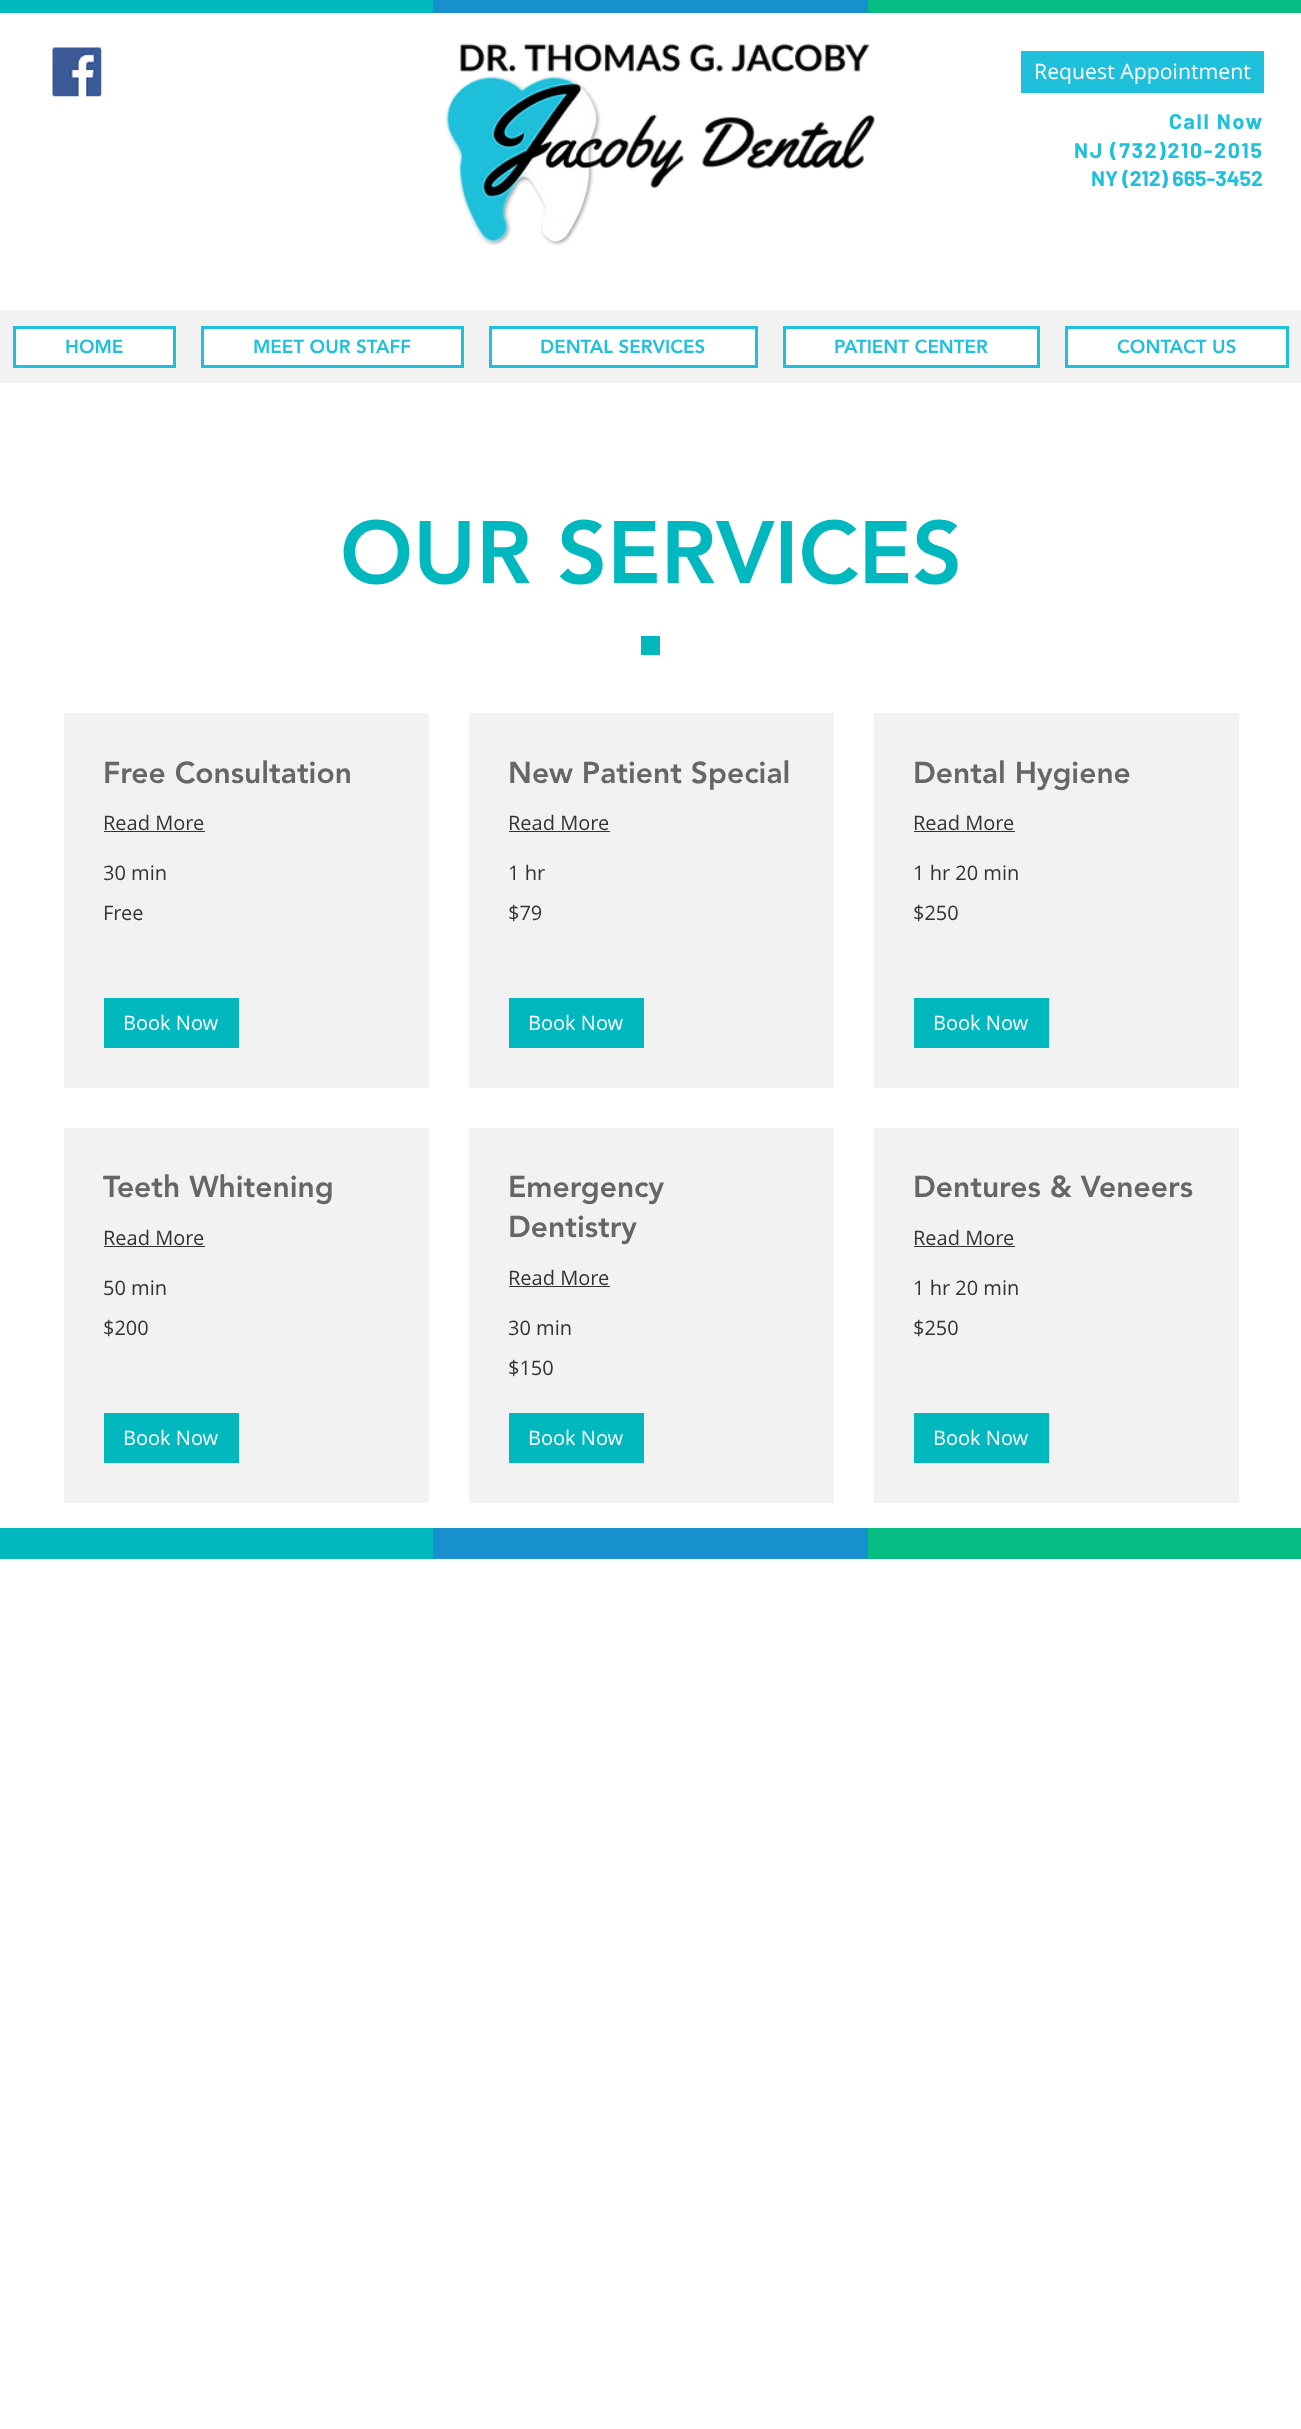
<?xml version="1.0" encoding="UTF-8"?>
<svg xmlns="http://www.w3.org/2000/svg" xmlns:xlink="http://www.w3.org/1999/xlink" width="1301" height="2429">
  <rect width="100%" height="100%" fill="#ffffff" />
  <rect width="433" height="13" fill="#02b8bf" />
  <rect x="433" width="435" height="13" fill="#1990ce" />
  <rect x="868" width="433" height="13" fill="#07bc83" />
  <image x="52" y="47" width="50" height="50" xlink:href="image1.png" />
  <image x="446" y="43" width="430" height="203" xlink:href="image2.png" />
  <rect x="1021" y="51" width="243" height="42" fill="#1fc0db" />
  <rect y="310" width="1301" height="73" fill="#f2f2f2" />
  <rect x="14.5" y="327.5" width="160" height="39" fill="#ffffff" stroke="#1fc0db" stroke-width="3" />
  <rect x="202.5" y="327.5" width="260" height="39" fill="#ffffff" stroke="#1fc0db" stroke-width="3" />
  <rect x="490.5" y="327.5" width="266" height="39" fill="#ffffff" stroke="#1fc0db" stroke-width="3" />
  <rect x="784.5" y="327.5" width="254" height="39" fill="#ffffff" stroke="#1fc0db" stroke-width="3" />
  <rect x="1066.5" y="327.5" width="221" height="39" fill="#ffffff" stroke="#1fc0db" stroke-width="3" />
  <rect x="641" y="636" width="19" height="19" fill="#02b8bf" />
  <rect x="64" y="713" width="365" height="375" fill="#f2f2f2" />
  <rect x="104" y="831" width="101" height="1" fill="#333333" />
  <rect x="104" y="998" width="135" height="50" fill="#02b8bf" />
  <rect x="469" y="713" width="365" height="375" fill="#f2f2f2" />
  <rect x="509" y="831" width="101" height="1" fill="#333333" />
  <rect x="509" y="998" width="135" height="50" fill="#02b8bf" />
  <rect x="874" y="713" width="365" height="375" fill="#f2f2f2" />
  <rect x="914" y="831" width="101" height="1" fill="#333333" />
  <rect x="914" y="998" width="135" height="50" fill="#02b8bf" />
  <rect x="64" y="1128" width="365" height="375" fill="#f2f2f2" />
  <rect x="104" y="1246" width="101" height="1" fill="#333333" />
  <rect x="104" y="1413" width="135" height="50" fill="#02b8bf" />
  <rect x="469" y="1128" width="365" height="375" fill="#f2f2f2" />
  <rect x="509" y="1286" width="101" height="1" fill="#333333" />
  <rect x="509" y="1413" width="135" height="50" fill="#02b8bf" />
  <rect x="874" y="1128" width="365" height="375" fill="#f2f2f2" />
  <rect x="914" y="1246" width="101" height="1" fill="#333333" />
  <rect x="914" y="1413" width="135" height="50" fill="#02b8bf" />
  <rect y="1528" width="433" height="31" fill="#02b8bf" />
  <rect x="433" y="1528" width="435" height="31" fill="#1990ce" />
  <rect x="868" y="1528" width="433" height="31" fill="#07bc83" />
  <text x="1034" y="79" style="font-family: Open Sans; font-size: 21.25px; fill: #ffffff">Request Appointment</text>
  <text x="1169" y="129" style="font-family: Barlow; font-size: 21.25px; font-weight: bold; letter-spacing: 1.75px; fill: #1fc0db">Call Now</text>
  <text x="1074" y="158" style="font-family: Barlow; font-size: 21.25px; font-weight: bold; letter-spacing: 1.75px; fill: #1fc0db">NJ (732)210-2015</text>
  <text x="1091" y="186" style="font-family: Barlow; font-size: 21.25px; font-weight: bold; fill: #1fc0db">NY (212) 665-3452</text>
  <text x="65" y="353" style="font-family: 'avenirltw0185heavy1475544'; font-size: 18.75px; font-weight: 900; fill: #1fc0db">HOME</text>
  <text x="253" y="353" style="font-family: 'avenirltw0185heavy1475544'; font-size: 18.75px; font-weight: 900; fill: #1fc0db">MEET OUR STAFF</text>
  <text x="540" y="353" style="font-family: 'avenirltw0185heavy1475544'; font-size: 18.75px; font-weight: 900; fill: #1fc0db">DENTAL SERVICES</text>
  <text x="834" y="353" style="font-family: 'avenirltw0185heavy1475544'; font-size: 18.75px; font-weight: 900; fill: #1fc0db">PATIENT CENTER</text>
  <text x="1117" y="353" style="font-family: 'avenirltw0185heavy1475544'; font-size: 18.75px; font-weight: 900; fill: #1fc0db">CONTACT US</text>
  <text x="340" y="583" style="font-family: 'avenirltw0185heavy1475544'; font-size: 87.5px; font-weight: 900; fill: #02b8bf">OUR SERVICES</text>
  <text x="103" y="783" style="font-family: 'avenirltw0185heavy1475544'; font-size: 30px; font-weight: 900; fill: #666666">Free Consultation</text>
  <text x="103" y="830" style="font-family: Open Sans; font-size: 20px; fill: #333333">Read More</text>
  <text x="103" y="880" style="font-family: Open Sans; font-size: 20px; fill: #333333">30 min</text>
  <text x="103" y="920" style="font-family: Open Sans; font-size: 20px; fill: #333333">Free</text>
  <text x="123" y="1030" style="font-family: Open Sans; font-size: 20px; fill: #ffffff">Book Now</text>
  <text x="508" y="783" style="font-family: 'avenirltw0185heavy1475544'; font-size: 30px; font-weight: 900; fill: #666666">New Patient Special</text>
  <text x="508" y="830" style="font-family: Open Sans; font-size: 20px; fill: #333333">Read More</text>
  <text x="508" y="880" style="font-family: Open Sans; font-size: 20px; fill: #333333">1 hr</text>
  <text x="508" y="920" style="font-family: Open Sans; font-size: 20px; fill: #333333">$79</text>
  <text x="528" y="1030" style="font-family: Open Sans; font-size: 20px; fill: #ffffff">Book Now</text>
  <text x="913" y="783" style="font-family: 'avenirltw0185heavy1475544'; font-size: 30px; font-weight: 900; fill: #666666">Dental Hygiene</text>
  <text x="913" y="830" style="font-family: Open Sans; font-size: 20px; fill: #333333">Read More</text>
  <text x="913" y="880" style="font-family: Open Sans; font-size: 20px; fill: #333333">1 hr 20 min</text>
  <text x="913" y="920" style="font-family: Open Sans; font-size: 20px; fill: #333333">$250</text>
  <text x="933" y="1030" style="font-family: Open Sans; font-size: 20px; fill: #ffffff">Book Now</text>
  <text x="103" y="1197" style="font-family: 'avenirltw0185heavy1475544'; font-size: 30px; font-weight: 900; fill: #666666">Teeth Whitening</text>
  <text x="103" y="1245" style="font-family: Open Sans; font-size: 20px; fill: #333333">Read More</text>
  <text x="103" y="1295" style="font-family: Open Sans; font-size: 20px; fill: #333333">50 min</text>
  <text x="103" y="1335" style="font-family: Open Sans; font-size: 20px; fill: #333333">$200</text>
  <text x="123" y="1445" style="font-family: Open Sans; font-size: 20px; fill: #ffffff">Book Now</text>
  <text x="508" y="1197" style="font-family: 'avenirltw0185heavy1475544'; font-size: 30px; font-weight: 900; fill: #666666">Emergency</text>
  <text x="508" y="1237" style="font-family: 'avenirltw0185heavy1475544'; font-size: 30px; font-weight: 900; fill: #666666">Dentistry</text>
  <text x="508" y="1285" style="font-family: Open Sans; font-size: 20px; fill: #333333">Read More</text>
  <text x="508" y="1335" style="font-family: Open Sans; font-size: 20px; fill: #333333">30 min</text>
  <text x="508" y="1375" style="font-family: Open Sans; font-size: 20px; fill: #333333">$150</text>
  <text x="528" y="1445" style="font-family: Open Sans; font-size: 20px; fill: #ffffff">Book Now</text>
  <text x="913" y="1197" style="font-family: 'avenirltw0185heavy1475544'; font-size: 30px; font-weight: 900; fill: #666666">Dentures &amp; Veneers</text>
  <text x="913" y="1245" style="font-family: Open Sans; font-size: 20px; fill: #333333">Read More</text>
  <text x="913" y="1295" style="font-family: Open Sans; font-size: 20px; fill: #333333">1 hr 20 min</text>
  <text x="913" y="1335" style="font-family: Open Sans; font-size: 20px; fill: #333333">$250</text>
  <text x="933" y="1445" style="font-family: Open Sans; font-size: 20px; fill: #ffffff">Book Now</text>
</svg>
